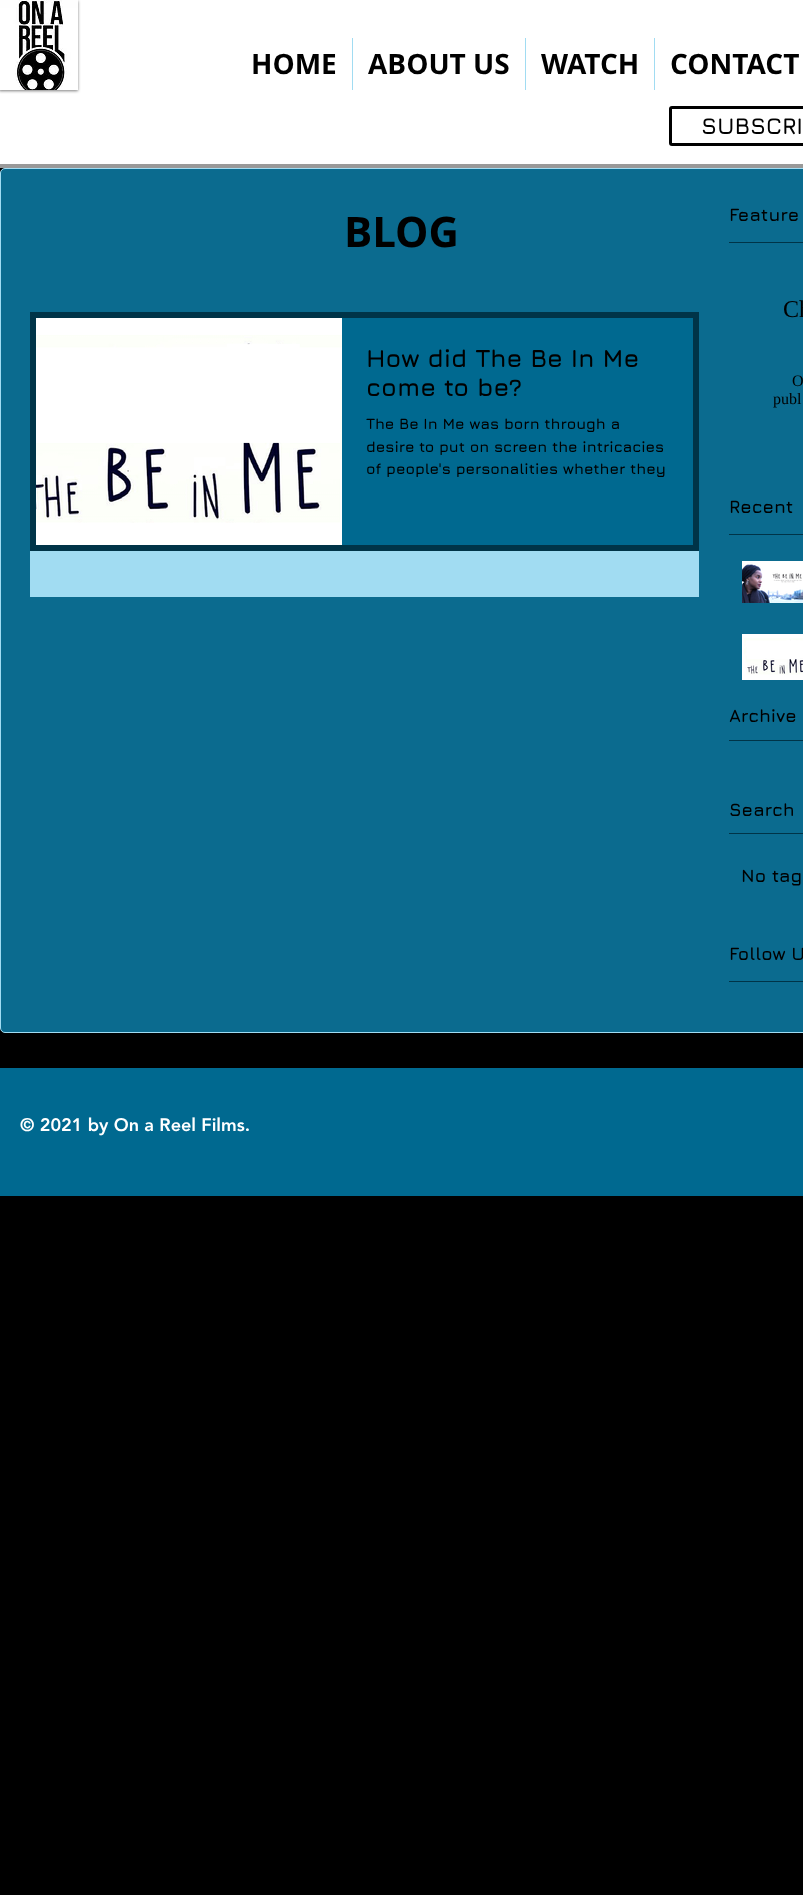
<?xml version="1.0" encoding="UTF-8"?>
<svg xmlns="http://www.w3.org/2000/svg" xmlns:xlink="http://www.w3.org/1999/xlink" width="803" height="1895">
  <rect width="100%" height="100%" fill="#000000" />
  <rect width="803" height="164" fill="#ffffff" />
  <rect x="-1" y="1" width="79" height="90" fill="#000000" fill-opacity="0.5" filter="blur(1.5px)" />
  <image x="0" y="0" width="78" height="90" xlink:href="image1.png" />
  <rect x="352" y="38" width="1" height="52" fill="#a1dcf2" />
  <rect x="525" y="38" width="1" height="52" fill="#a1dcf2" />
  <rect x="654" y="38" width="1" height="52" fill="#a1dcf2" />
  <rect x="670.5" y="107.5" width="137" height="37" rx="1.5" fill="none" stroke="#000000" stroke-width="3" />
  <rect y="164" width="803" height="4" fill="#999999" />
  <rect x="0.5" y="168.5" width="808" height="864" rx="4.5" fill="#0b6b8f" stroke="#a1dcf2" />
  <rect x="729" y="242" width="74" height="1" fill="#003448" />
  <rect x="30" y="551" width="669" height="46" fill="#a1dcf2" />
  <rect x="33" y="315" width="663" height="233" fill="none" stroke="#003448" stroke-width="6" />
  <image x="36" y="318" width="306" height="17" xlink:href="image2.png" />
  <image x="36" y="335" width="306" height="210" xlink:href="image3.png" />
  <rect x="342" y="318" width="351" height="227" fill="#006990" />
  <rect x="729" y="534" width="74" height="1" fill="#003448" />
  <image x="742" y="561" width="61" height="42" xlink:href="image4.png" />
  <image x="742" y="634" width="61" height="4" xlink:href="image5.png" />
  <image x="742" y="638" width="61" height="42" xlink:href="image6.png" />
  <rect x="729" y="740" width="74" height="1" fill="#003448" />
  <rect x="729" y="833" width="74" height="1" fill="#003448" />
  <rect x="729" y="981" width="74" height="1" fill="#003448" />
  <rect y="1068" width="803" height="128" fill="#006990" />
  <text x="251" y="74" style="font-family: Open Sans; font-size: 28px; font-weight: bold; fill: #000000">HOME</text>
  <text x="368" y="74" style="font-family: Open Sans; font-size: 28px; font-weight: bold; fill: #000000">ABOUT US</text>
  <text x="541" y="74" style="font-family: Open Sans; font-size: 28px; font-weight: bold; fill: #000000">WATCH</text>
  <text x="670" y="74" style="font-family: Open Sans; font-size: 28px; font-weight: bold; fill: #000000">CONTACT</text>
  <text x="701" y="134" style="font-family: Jura; font-size: 23px; font-weight: bold; fill: #000000">SUBSCRI</text>
  <text x="729" y="221" style="font-family: Jura; font-size: 18px; font-weight: bold; fill: #000000">Feature</text>
  <text x="344" y="247" style="font-family: Open Sans; font-size: 42px; font-weight: bold; fill: #000000">BLOG</text>
  <text x="366" y="367" style="font-family: Jura; font-size: 25px; font-weight: bold; fill: #000000">How did The Be In Me</text>
  <text x="366" y="396" style="font-family: Jura; font-size: 25px; font-weight: bold; fill: #000000">come to be?</text>
  <text x="366" y="429" style="font-family: Jura; font-size: 15px; font-weight: bold; fill: #000000">The Be In Me was born through a</text>
  <text x="366" y="452" style="font-family: Jura; font-size: 15px; font-weight: bold; fill: #000000">desire to put on screen the intricacies</text>
  <text x="366" y="474" style="font-family: Jura; font-size: 15px; font-weight: bold; fill: #000000">of people's personalities whether they</text>
  <text x="783" y="317" style="font-family: Liberation Serif; font-size: 24px; fill: #000000">Ch</text>
  <text x="792" y="386" style="font-family: Liberation Serif; font-size: 16px; fill: #000000">O</text>
  <text x="773" y="404" style="font-family: Liberation Serif; font-size: 16px; fill: #000000">publ</text>
  <text x="729" y="513" style="font-family: Jura; font-size: 18px; font-weight: bold; fill: #000000">Recent</text>
  <text x="729" y="722" style="font-family: Jura; font-size: 18px; font-weight: bold; fill: #000000">Archive</text>
  <text x="729" y="816" style="font-family: Jura; font-size: 18px; font-weight: bold; fill: #000000">Search</text>
  <text x="741" y="882" style="font-family: Jura; font-size: 18px; font-weight: bold; fill: #000000">No tag</text>
  <text x="729" y="960" style="font-family: Jura; font-size: 18px; font-weight: bold; fill: #000000">Follow U</text>
  <text x="20" y="1131" style="font-family: 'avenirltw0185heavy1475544'; font-size: 18px; font-weight: 900; fill: #ffffff">© 2021 by On a Reel Films.</text>
</svg>
